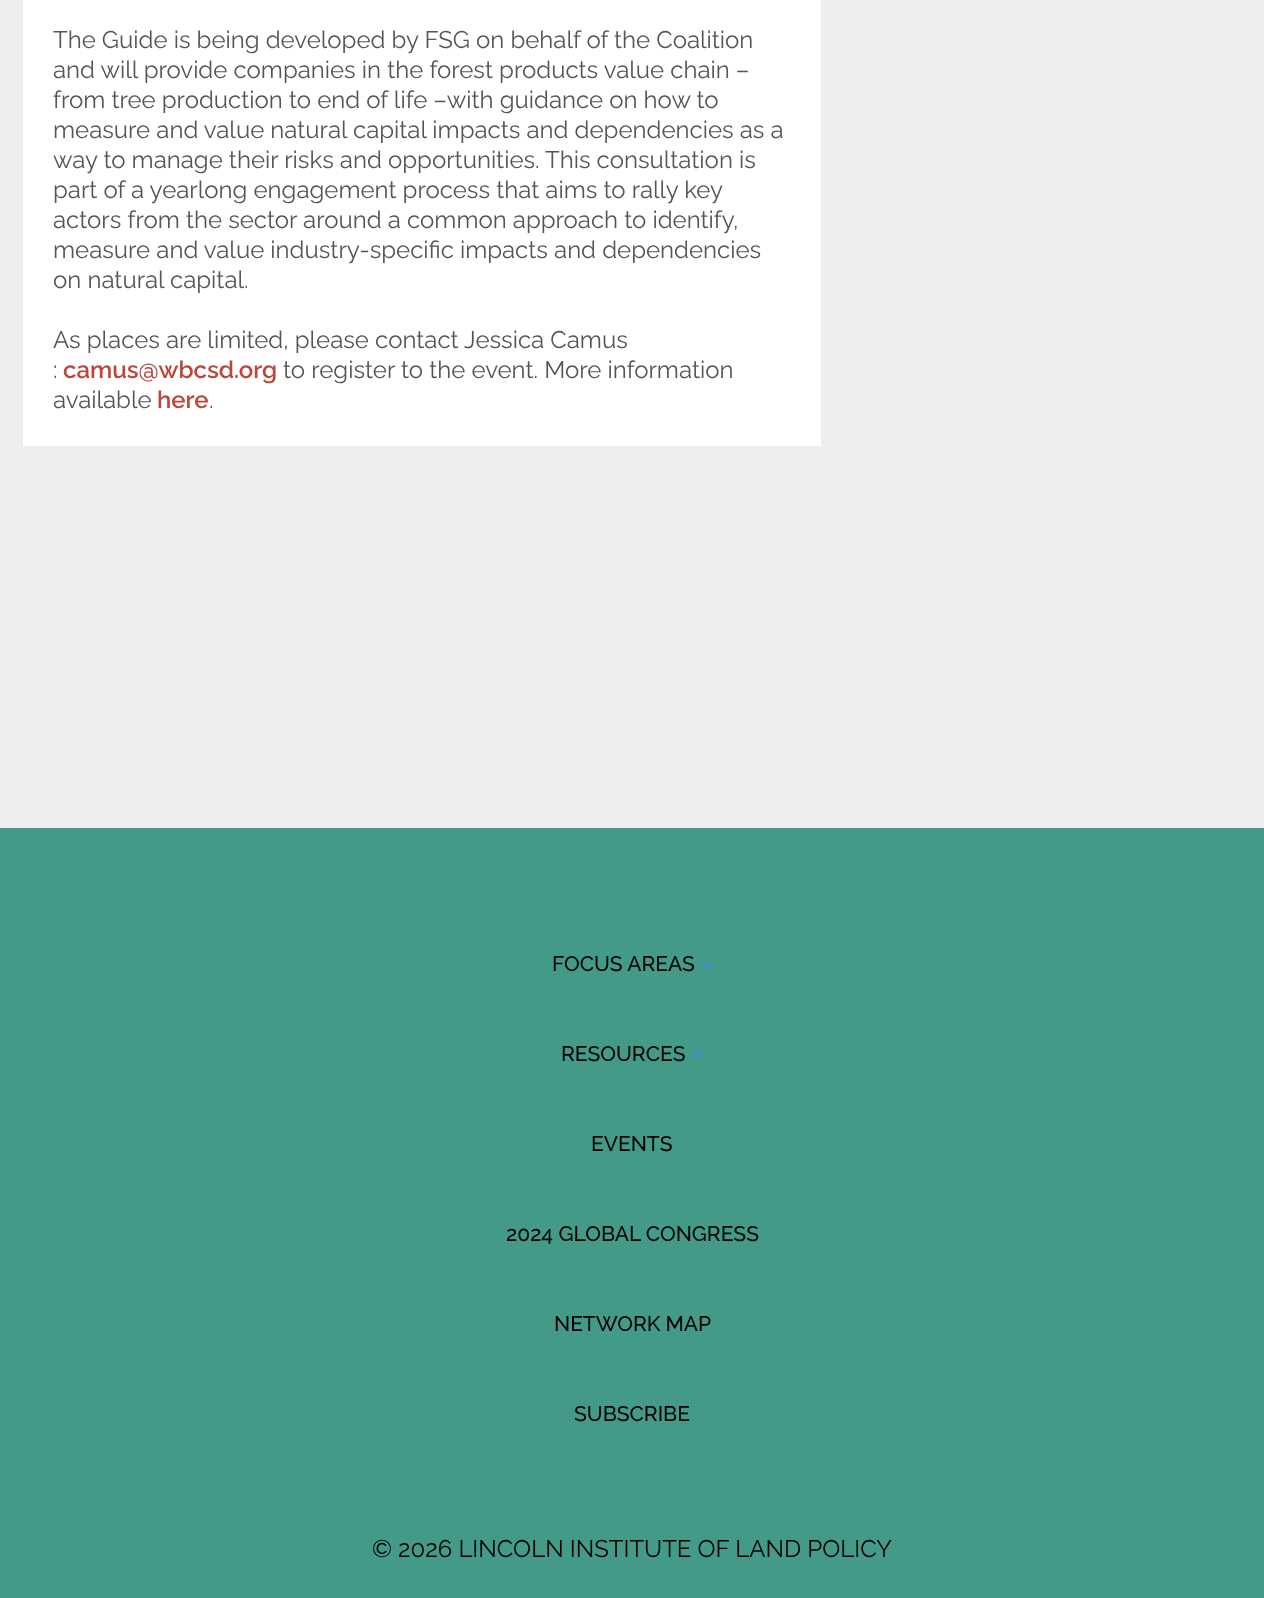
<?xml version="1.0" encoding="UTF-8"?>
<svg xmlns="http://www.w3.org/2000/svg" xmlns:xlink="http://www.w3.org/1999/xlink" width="1264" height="1598">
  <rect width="100%" height="100%" fill="#eeeeee" />
  <rect x="23" width="798" height="446" fill="#ffffff" />
  <rect y="828" width="1264" height="770" fill="#449a88" />
  <path d="M 700.5 963 h 12 l -6 6 z" fill="#428bca" />
  <path d="M 691.5 1053 h 12 l -6 6 z" fill="#428bca" />
  <text x="53" y="48" style="font-family: Raleway; font-size: 24px; fill: #555555">The Guide is being developed by FSG on behalf of the Coalition</text>
  <text x="53" y="78" style="font-family: Raleway; font-size: 24px; fill: #555555">and will provide companies in the forest products value chain –</text>
  <text x="53" y="108" style="font-family: Raleway; font-size: 24px; fill: #555555">from tree production to end of life –with guidance on how to</text>
  <text x="53" y="138" style="font-family: Raleway; font-size: 24px; fill: #555555">measure and value natural capital impacts and dependencies as a</text>
  <text x="53" y="168" style="font-family: Raleway; font-size: 24px; fill: #555555">way to manage their risks and opportunities. This consultation is</text>
  <text x="53" y="198" style="font-family: Raleway; font-size: 24px; fill: #555555">part of a yearlong engagement process that aims to rally key</text>
  <text x="53" y="228" style="font-family: Raleway; font-size: 24px; fill: #555555">actors from the sector around a common approach to identify,</text>
  <text x="53" y="258" style="font-family: Raleway; font-size: 24px; fill: #555555">measure and value industry-specific impacts and dependencies</text>
  <text x="53" y="288" style="font-family: Raleway; font-size: 24px; fill: #555555">on natural capital.</text>
  <text x="53" y="348" style="font-family: Raleway; font-size: 24px; fill: #555555">As places are limited, please contact Jessica Camus</text>
  <text x="53" y="378" style="font-family: Raleway; font-size: 24px; fill: #555555">:</text>
  <text x="63" y="378" style="font-family: Raleway; font-size: 24px; font-weight: 600; fill: #bc463a">camus@wbcsd.org</text>
  <text x="283" y="378" style="font-family: Raleway; font-size: 24px; fill: #555555">to register to the event. More information</text>
  <text x="53" y="408" style="font-family: Raleway; font-size: 24px; fill: #555555">available</text>
  <text x="157" y="408" style="font-family: Raleway; font-size: 24px; font-weight: 600; fill: #bc463a">here</text>
  <text x="209" y="408" style="font-family: Raleway; font-size: 24px; fill: #555555">.</text>
  <text x="552" y="971" style="font-family: Raleway; font-size: 21px; font-weight: 500; fill: #000000">FOCUS AREAS</text>
  <text x="561" y="1061" style="font-family: Raleway; font-size: 21px; font-weight: 500; fill: #000000">RESOURCES</text>
  <text x="591" y="1151" style="font-family: Raleway; font-size: 21px; font-weight: 500; fill: #000000">EVENTS</text>
  <text x="506" y="1241" style="font-family: Raleway; font-size: 21px; font-weight: 500; fill: #000000">2024 GLOBAL CONGRESS</text>
  <text x="554" y="1331" style="font-family: Raleway; font-size: 21px; font-weight: 500; fill: #000000">NETWORK MAP</text>
  <text x="574" y="1421" style="font-family: Raleway; font-size: 21px; font-weight: 500; fill: #000000">SUBSCRIBE</text>
  <text x="372" y="1557" style="font-family: Raleway; font-size: 24px; fill: #000000">© 2026 LINCOLN INSTITUTE OF LAND POLICY</text>
</svg>
